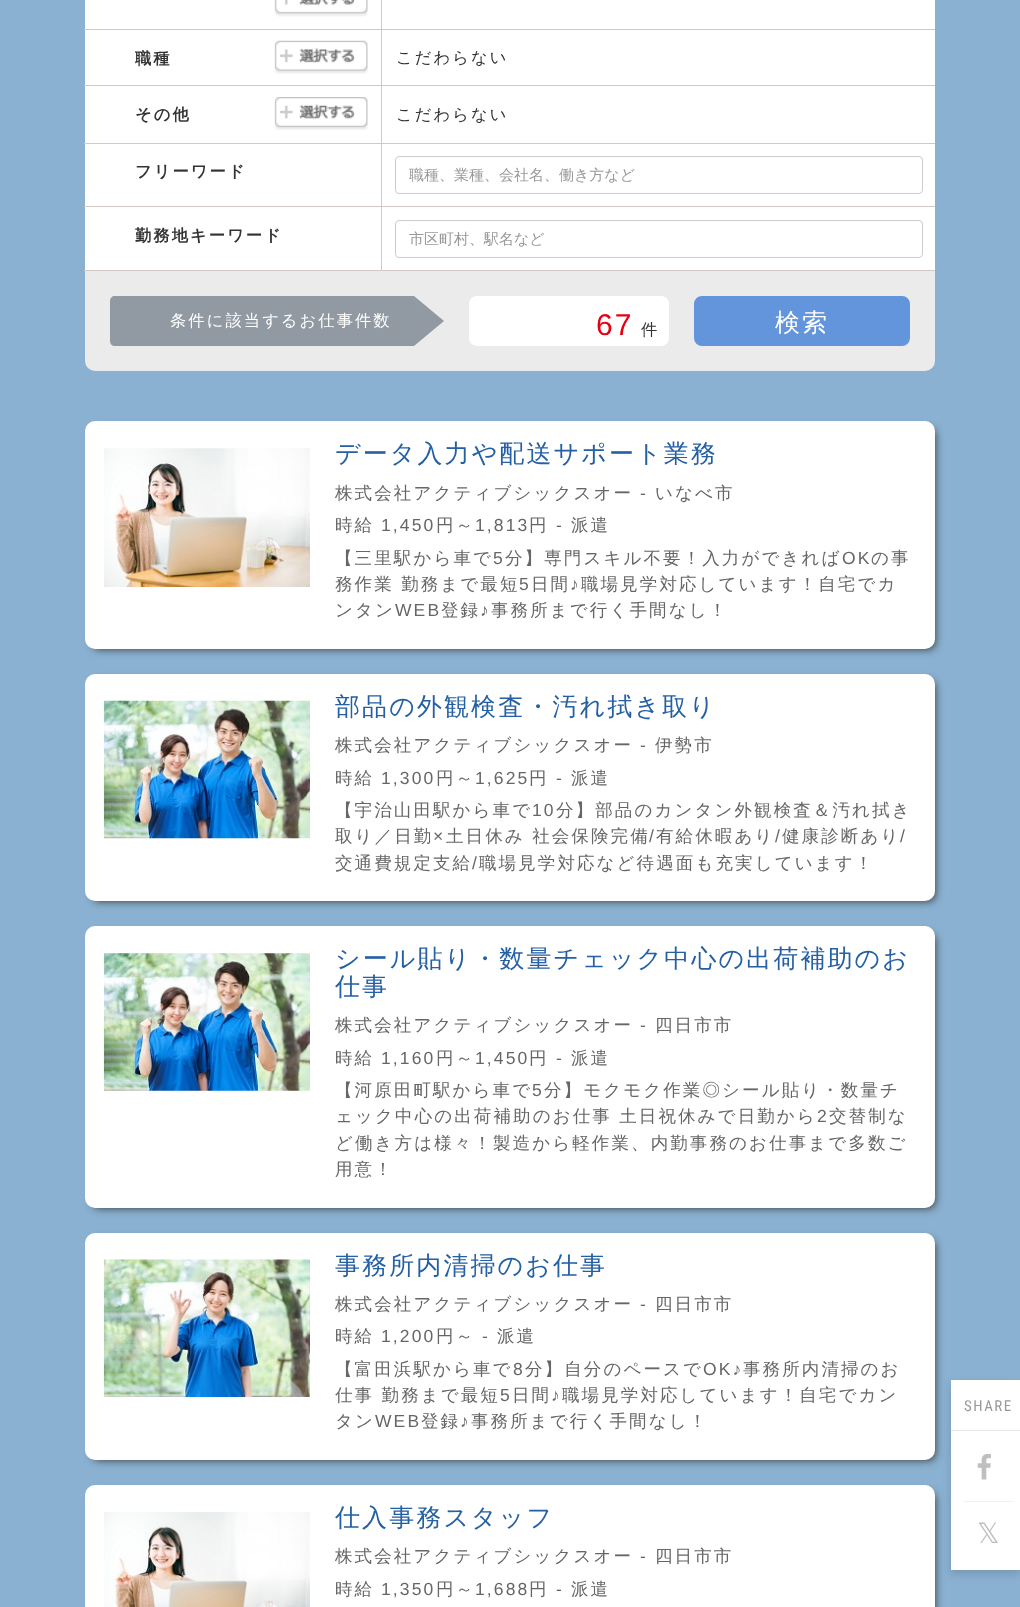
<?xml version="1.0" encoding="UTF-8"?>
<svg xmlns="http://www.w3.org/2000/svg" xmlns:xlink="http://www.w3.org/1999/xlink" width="1020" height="1607">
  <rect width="100%" height="100%" fill="#8ab1d1" />
  <rect x="85" y="-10" width="850" height="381" rx="10" fill="#ebebeb" />
  <rect x="85" width="850" height="143" fill="#ffffff" />
  <rect x="381" y="143" width="554" height="1" fill="#d0c9c6" />
  <rect x="381" y="85" width="1" height="59" fill="#d0c9c6" />
  <rect x="381" y="85" width="554" height="1" fill="#d0c9c6" />
  <rect x="381" y="29" width="1" height="57" fill="#d0c9c6" />
  <rect x="381" y="29" width="554" height="1" fill="#d0c9c6" />
  <rect x="381" width="1" height="30" fill="#d0c9c6" />
  <rect x="84" y="29" width="299" height="1" fill="#d0c9c6" />
  <image x="274" y="0" width="94" height="17" xlink:href="image1.png" />
  <rect x="84" y="85" width="299" height="1" fill="#d0c9c6" />
  <image x="274" y="40" width="94" height="34" xlink:href="image2.png" />
  <rect x="84" y="143" width="299" height="1" fill="#d0c9c6" />
  <image x="274" y="97" width="94" height="33" xlink:href="image3.png" />
  <rect x="85" y="144" width="850" height="126" fill="#ffffff" />
  <rect x="381" y="270" width="554" height="1" fill="#d0c9c6" />
  <rect x="381" y="206" width="1" height="65" fill="#d0c9c6" />
  <rect x="381" y="206" width="554" height="1" fill="#d0c9c6" />
  <rect x="381" y="143" width="1" height="65" fill="#d0c9c6" />
  <rect x="84" y="206" width="299" height="1" fill="#d0c9c6" />
  <rect x="395.5" y="156.5" width="527" height="37" rx="3.5" fill="none" stroke="#cccccc" />
  <rect x="84" y="270" width="299" height="1" fill="#d0c9c6" />
  <rect x="395.5" y="220.5" width="527" height="37" rx="3.5" fill="none" stroke="#cccccc" />
  <path d="M 115 296 h 299 v 50 h -299 c -3 0 -5 -2 -5 -5 v -40 c 0 -3 2 -5 5 -5 z" fill="#919aa2" />
  <path d="M 414 346 v -50 l 30 25 z" fill="#919aa2" />
  <rect x="469" y="296" width="200" height="50" rx="8" fill="#ffffff" />
  <rect x="695.5" y="297.5" width="213" height="47" rx="6.5" fill="#6295db" stroke="#6295db" stroke-width="3" />
  <rect x="93" y="429" width="842" height="220" rx="6" fill="#333333" filter="blur(4px)" />
  <rect x="85" y="421" width="850" height="228" rx="10" fill="#ffffff" />
  <image x="104" y="448" width="206" height="139" xlink:href="image4.png" />
  <rect x="93" y="681" width="842" height="220" rx="6" fill="#333333" filter="blur(4px)" />
  <rect x="85" y="674" width="850" height="227" rx="10" fill="#ffffff" />
  <image x="103" y="700" width="207" height="139" xlink:href="image5.png" />
  <rect x="93" y="934" width="842" height="274" rx="6" fill="#333333" filter="blur(4px)" />
  <rect x="85" y="926" width="850" height="282" rx="10" fill="#ffffff" />
  <image x="103" y="953" width="207" height="138" xlink:href="image6.png" />
  <rect x="93" y="1240" width="842" height="220" rx="6" fill="#333333" filter="blur(4px)" />
  <rect x="85" y="1233" width="850" height="227" rx="10" fill="#ffffff" />
  <image x="103" y="1259" width="207" height="138" xlink:href="image7.png" />
  <rect x="93" y="1493" width="842" height="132" rx="6" fill="#333333" filter="blur(4px)" />
  <rect x="85" y="1485" width="850" height="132" rx="10" fill="#ffffff" />
  <image x="104" y="1512" width="206" height="95" xlink:href="image8.png" />
  <rect x="951" y="1384" width="69" height="190" fill="#000000" fill-opacity="0.15" filter="blur(4px)" />
  <rect x="951" y="1380" width="69" height="190" fill="#ffffff" />
  <rect x="951" y="1430" width="69" height="1" fill="#e6e6e6" />
  <image x="977" y="1454" width="14" height="26" xlink:href="image9.png" />
  <rect x="964" y="1501" width="50" height="1" fill="#f2f2f2" />
  <text x="135" y="64" style="font-family: WenQuanYi Zen Hei; font-size: 16.25px; font-weight: bold; letter-spacing: 2.1px; fill: #333333">職種</text>
  <text x="396" y="63" style="font-family: WenQuanYi Zen Hei; font-size: 16.25px; font-weight: 500; letter-spacing: 2.1px; fill: #333333">こだわらない</text>
  <text x="135" y="120" style="font-family: WenQuanYi Zen Hei; font-size: 16.25px; font-weight: bold; letter-spacing: 2.1px; fill: #333333">その他</text>
  <text x="396" y="120" style="font-family: WenQuanYi Zen Hei; font-size: 16.25px; font-weight: 500; letter-spacing: 2.1px; fill: #333333">こだわらない</text>
  <text x="135" y="177" style="font-family: WenQuanYi Zen Hei; font-size: 16.25px; font-weight: bold; letter-spacing: 2.1px; fill: #333333">フリーワード</text>
  <text x="409" y="180" style="font-family: WenQuanYi Zen Hei; font-size: 15px; font-weight: 500; fill: #999999">職種、業種、会社名、働き方など</text>
  <text x="135" y="241" style="font-family: WenQuanYi Zen Hei; font-size: 16.25px; font-weight: bold; letter-spacing: 2.1px; fill: #333333">勤務地キーワード</text>
  <text x="409" y="244" style="font-family: WenQuanYi Zen Hei; font-size: 15px; font-weight: 500; fill: #999999">市区町村、駅名など</text>
  <text x="170" y="326" style="font-family: WenQuanYi Zen Hei; font-size: 16.25px; font-weight: 500; letter-spacing: 2.1px; fill: #ffffff">条件に該当するお仕事件数</text>
  <text x="596" y="335" style="font-family: Liberation Sans; font-size: 30px; letter-spacing: 2.1px; fill: #e60012">67</text>
  <text x="641" y="335" style="font-family: WenQuanYi Zen Hei; font-size: 16.25px; font-weight: 500; letter-spacing: 2.1px; fill: #333333">件</text>
  <text x="775" y="331" style="font-family: WenQuanYi Zen Hei; font-size: 25px; font-weight: 500; letter-spacing: 2.1px; fill: #ffffff">検索</text>
  <text x="335" y="462" style="font-family: WenQuanYi Zen Hei; font-size: 25px; font-weight: 500; letter-spacing: 2.1px; fill: #2560a4">データ入力や配送サポート業務</text>
  <text x="335" y="499" style="font-family: WenQuanYi Zen Hei; font-size: 17.5px; font-weight: 500; letter-spacing: 2.1px; fill: #666666">株式会社アクティブシックスオー</text>
  <text x="640" y="499" style="font-family: Liberation Sans; font-size: 17.5px; letter-spacing: 2.1px; fill: #666666">-</text>
  <text x="655" y="499" style="font-family: WenQuanYi Zen Hei; font-size: 17.5px; font-weight: 500; letter-spacing: 2.1px; fill: #666666">いなべ市</text>
  <text x="335" y="531" style="font-family: WenQuanYi Zen Hei; font-size: 17.5px; font-weight: 500; letter-spacing: 2.1px; fill: #666666">時給</text>
  <text x="381" y="531" style="font-family: Liberation Sans; font-size: 17.5px; letter-spacing: 2.1px; fill: #666666">1,450</text>
  <text x="436" y="531" style="font-family: WenQuanYi Zen Hei; font-size: 17.5px; font-weight: 500; letter-spacing: 2.1px; fill: #666666">円～</text>
  <text x="475" y="531" style="font-family: Liberation Sans; font-size: 17.5px; letter-spacing: 2.1px; fill: #666666">1,813</text>
  <text x="529" y="531" style="font-family: WenQuanYi Zen Hei; font-size: 17.5px; font-weight: 500; letter-spacing: 2.1px; fill: #666666">円</text>
  <text x="556" y="531" style="font-family: Liberation Sans; font-size: 17.5px; letter-spacing: 2.1px; fill: #666666">-</text>
  <text x="571" y="531" style="font-family: WenQuanYi Zen Hei; font-size: 17.5px; font-weight: 500; letter-spacing: 2.1px; fill: #666666">派遣</text>
  <text x="335" y="564" style="font-family: WenQuanYi Zen Hei; font-size: 17.5px; font-weight: 500; letter-spacing: 2.1px; fill: #666666">【三里駅から車で</text>
  <text x="493" y="564" style="font-family: Liberation Sans; font-size: 17.5px; letter-spacing: 2.1px; fill: #666666">5</text>
  <text x="505" y="564" style="font-family: WenQuanYi Zen Hei; font-size: 17.5px; font-weight: 500; letter-spacing: 2.1px; fill: #666666">分】専門スキル不要！入力ができれば</text>
  <text x="842" y="564" style="font-family: Liberation Sans; font-size: 17.5px; letter-spacing: 2.1px; fill: #666666">OK</text>
  <text x="871" y="564" style="font-family: WenQuanYi Zen Hei; font-size: 17.5px; font-weight: 500; letter-spacing: 2.1px; fill: #666666">の事</text>
  <text x="335" y="590" style="font-family: WenQuanYi Zen Hei; font-size: 17.5px; font-weight: 500; letter-spacing: 2.1px; fill: #666666">務作業 勤務まで最短</text>
  <text x="519" y="590" style="font-family: Liberation Sans; font-size: 17.5px; letter-spacing: 2.1px; fill: #666666">5</text>
  <text x="531" y="590" style="font-family: WenQuanYi Zen Hei; font-size: 17.5px; font-weight: 500; letter-spacing: 2.1px; fill: #666666">日間</text>
  <text x="570" y="590" style="font-family: Liberation Sans; font-size: 17.5px; letter-spacing: 2.1px; fill: #666666">♪</text>
  <text x="581" y="590" style="font-family: WenQuanYi Zen Hei; font-size: 17.5px; font-weight: 500; letter-spacing: 2.1px; fill: #666666">職場見学対応しています！自宅でカ</text>
  <text x="335" y="616" style="font-family: WenQuanYi Zen Hei; font-size: 17.5px; font-weight: 500; letter-spacing: 2.1px; fill: #666666">ンタン</text>
  <text x="395" y="616" style="font-family: Liberation Sans; font-size: 17.5px; letter-spacing: 2.1px; fill: #666666">WEB</text>
  <text x="441" y="616" style="font-family: WenQuanYi Zen Hei; font-size: 17.5px; font-weight: 500; letter-spacing: 2.1px; fill: #666666">登録</text>
  <text x="480" y="616" style="font-family: Liberation Sans; font-size: 17.5px; letter-spacing: 2.1px; fill: #666666">♪</text>
  <text x="491" y="616" style="font-family: WenQuanYi Zen Hei; font-size: 17.5px; font-weight: 500; letter-spacing: 2.1px; fill: #666666">事務所まで行く手間なし！</text>
  <text x="335" y="715" style="font-family: WenQuanYi Zen Hei; font-size: 25px; font-weight: 500; letter-spacing: 2.1px; fill: #2560a4">部品の外観検査・汚れ拭き取り</text>
  <text x="335" y="751" style="font-family: WenQuanYi Zen Hei; font-size: 17.5px; font-weight: 500; letter-spacing: 2.1px; fill: #666666">株式会社アクティブシックスオー</text>
  <text x="640" y="751" style="font-family: Liberation Sans; font-size: 17.5px; letter-spacing: 2.1px; fill: #666666">-</text>
  <text x="655" y="751" style="font-family: WenQuanYi Zen Hei; font-size: 17.5px; font-weight: 500; letter-spacing: 2.1px; fill: #666666">伊勢市</text>
  <text x="335" y="784" style="font-family: WenQuanYi Zen Hei; font-size: 17.5px; font-weight: 500; letter-spacing: 2.1px; fill: #666666">時給</text>
  <text x="381" y="784" style="font-family: Liberation Sans; font-size: 17.5px; letter-spacing: 2.1px; fill: #666666">1,300</text>
  <text x="436" y="784" style="font-family: WenQuanYi Zen Hei; font-size: 17.5px; font-weight: 500; letter-spacing: 2.1px; fill: #666666">円～</text>
  <text x="475" y="784" style="font-family: Liberation Sans; font-size: 17.5px; letter-spacing: 2.1px; fill: #666666">1,625</text>
  <text x="529" y="784" style="font-family: WenQuanYi Zen Hei; font-size: 17.5px; font-weight: 500; letter-spacing: 2.1px; fill: #666666">円</text>
  <text x="556" y="784" style="font-family: Liberation Sans; font-size: 17.5px; letter-spacing: 2.1px; fill: #666666">-</text>
  <text x="571" y="784" style="font-family: WenQuanYi Zen Hei; font-size: 17.5px; font-weight: 500; letter-spacing: 2.1px; fill: #666666">派遣</text>
  <text x="335" y="816" style="font-family: WenQuanYi Zen Hei; font-size: 17.5px; font-weight: 500; letter-spacing: 2.1px; fill: #666666">【宇治山田駅から車で</text>
  <text x="532" y="816" style="font-family: Liberation Sans; font-size: 17.5px; letter-spacing: 2.1px; fill: #666666">10</text>
  <text x="556" y="816" style="font-family: WenQuanYi Zen Hei; font-size: 17.5px; font-weight: 500; letter-spacing: 2.1px; fill: #666666">分】部品のカンタン外観検査＆汚れ拭き</text>
  <text x="335" y="842" style="font-family: WenQuanYi Zen Hei; font-size: 17.5px; font-weight: 500; letter-spacing: 2.1px; fill: #666666">取り／日勤</text>
  <text x="433" y="842" style="font-family: Liberation Sans; font-size: 17.5px; letter-spacing: 2.1px; fill: #666666">×</text>
  <text x="446" y="842" style="font-family: WenQuanYi Zen Hei; font-size: 17.5px; font-weight: 500; letter-spacing: 2.1px; fill: #666666">土日休み 社会保険完備</text>
  <text x="649" y="842" style="font-family: Liberation Sans; font-size: 17.5px; letter-spacing: 2.1px; fill: #666666">/</text>
  <text x="656" y="842" style="font-family: WenQuanYi Zen Hei; font-size: 17.5px; font-weight: 500; letter-spacing: 2.1px; fill: #666666">有給休暇あり</text>
  <text x="775" y="842" style="font-family: Liberation Sans; font-size: 17.5px; letter-spacing: 2.1px; fill: #666666">/</text>
  <text x="782" y="842" style="font-family: WenQuanYi Zen Hei; font-size: 17.5px; font-weight: 500; letter-spacing: 2.1px; fill: #666666">健康診断あり</text>
  <text x="900" y="842" style="font-family: Liberation Sans; font-size: 17.5px; letter-spacing: 2.1px; fill: #666666">/</text>
  <text x="335" y="869" style="font-family: WenQuanYi Zen Hei; font-size: 17.5px; font-weight: 500; letter-spacing: 2.1px; fill: #666666">交通費規定支給</text>
  <text x="472" y="869" style="font-family: Liberation Sans; font-size: 17.5px; letter-spacing: 2.1px; fill: #666666">/</text>
  <text x="479" y="869" style="font-family: WenQuanYi Zen Hei; font-size: 17.5px; font-weight: 500; letter-spacing: 2.1px; fill: #666666">職場見学対応など待遇面も充実しています！</text>
  <text x="335" y="967" style="font-family: WenQuanYi Zen Hei; font-size: 25px; font-weight: 500; letter-spacing: 2.1px; fill: #2560a4">シール貼り・数量チェック中心の出荷補助のお</text>
  <text x="335" y="995" style="font-family: WenQuanYi Zen Hei; font-size: 25px; font-weight: 500; letter-spacing: 2.1px; fill: #2560a4">仕事</text>
  <text x="335" y="1031" style="font-family: WenQuanYi Zen Hei; font-size: 17.5px; font-weight: 500; letter-spacing: 2.1px; fill: #666666">株式会社アクティブシックスオー</text>
  <text x="640" y="1031" style="font-family: Liberation Sans; font-size: 17.5px; letter-spacing: 2.1px; fill: #666666">-</text>
  <text x="655" y="1031" style="font-family: WenQuanYi Zen Hei; font-size: 17.5px; font-weight: 500; letter-spacing: 2.1px; fill: #666666">四日市市</text>
  <text x="335" y="1064" style="font-family: WenQuanYi Zen Hei; font-size: 17.5px; font-weight: 500; letter-spacing: 2.1px; fill: #666666">時給</text>
  <text x="381" y="1064" style="font-family: Liberation Sans; font-size: 17.5px; letter-spacing: 2.1px; fill: #666666">1,160</text>
  <text x="436" y="1064" style="font-family: WenQuanYi Zen Hei; font-size: 17.5px; font-weight: 500; letter-spacing: 2.1px; fill: #666666">円～</text>
  <text x="475" y="1064" style="font-family: Liberation Sans; font-size: 17.5px; letter-spacing: 2.1px; fill: #666666">1,450</text>
  <text x="529" y="1064" style="font-family: WenQuanYi Zen Hei; font-size: 17.5px; font-weight: 500; letter-spacing: 2.1px; fill: #666666">円</text>
  <text x="556" y="1064" style="font-family: Liberation Sans; font-size: 17.5px; letter-spacing: 2.1px; fill: #666666">-</text>
  <text x="571" y="1064" style="font-family: WenQuanYi Zen Hei; font-size: 17.5px; font-weight: 500; letter-spacing: 2.1px; fill: #666666">派遣</text>
  <text x="335" y="1096" style="font-family: WenQuanYi Zen Hei; font-size: 17.5px; font-weight: 500; letter-spacing: 2.1px; fill: #666666">【河原田町駅から車で</text>
  <text x="532" y="1096" style="font-family: Liberation Sans; font-size: 17.5px; letter-spacing: 2.1px; fill: #666666">5</text>
  <text x="544" y="1096" style="font-family: WenQuanYi Zen Hei; font-size: 17.5px; font-weight: 500; letter-spacing: 2.1px; fill: #666666">分】モクモク作業◎シール貼り・数量チ</text>
  <text x="335" y="1122" style="font-family: WenQuanYi Zen Hei; font-size: 17.5px; font-weight: 500; letter-spacing: 2.1px; fill: #666666">ェック中心の出荷補助のお仕事 土日祝休みで日勤から</text>
  <text x="817" y="1122" style="font-family: Liberation Sans; font-size: 17.5px; letter-spacing: 2.1px; fill: #666666">2</text>
  <text x="829" y="1122" style="font-family: WenQuanYi Zen Hei; font-size: 17.5px; font-weight: 500; letter-spacing: 2.1px; fill: #666666">交替制な</text>
  <text x="335" y="1149" style="font-family: WenQuanYi Zen Hei; font-size: 17.5px; font-weight: 500; letter-spacing: 2.1px; fill: #666666">ど働き方は様々！製造から軽作業、内勤事務のお仕事まで多数ご</text>
  <text x="335" y="1175" style="font-family: WenQuanYi Zen Hei; font-size: 17.5px; font-weight: 500; letter-spacing: 2.1px; fill: #666666">用意！</text>
  <text x="335" y="1274" style="font-family: WenQuanYi Zen Hei; font-size: 25px; font-weight: 500; letter-spacing: 2.1px; fill: #2560a4">事務所内清掃のお仕事</text>
  <text x="335" y="1310" style="font-family: WenQuanYi Zen Hei; font-size: 17.5px; font-weight: 500; letter-spacing: 2.1px; fill: #666666">株式会社アクティブシックスオー</text>
  <text x="640" y="1310" style="font-family: Liberation Sans; font-size: 17.5px; letter-spacing: 2.1px; fill: #666666">-</text>
  <text x="655" y="1310" style="font-family: WenQuanYi Zen Hei; font-size: 17.5px; font-weight: 500; letter-spacing: 2.1px; fill: #666666">四日市市</text>
  <text x="335" y="1342" style="font-family: WenQuanYi Zen Hei; font-size: 17.5px; font-weight: 500; letter-spacing: 2.1px; fill: #666666">時給</text>
  <text x="381" y="1342" style="font-family: Liberation Sans; font-size: 17.5px; letter-spacing: 2.1px; fill: #666666">1,200</text>
  <text x="436" y="1342" style="font-family: WenQuanYi Zen Hei; font-size: 17.5px; font-weight: 500; letter-spacing: 2.1px; fill: #666666">円～</text>
  <text x="482" y="1342" style="font-family: Liberation Sans; font-size: 17.5px; letter-spacing: 2.1px; fill: #666666">-</text>
  <text x="497" y="1342" style="font-family: WenQuanYi Zen Hei; font-size: 17.5px; font-weight: 500; letter-spacing: 2.1px; fill: #666666">派遣</text>
  <text x="335" y="1375" style="font-family: WenQuanYi Zen Hei; font-size: 17.5px; font-weight: 500; letter-spacing: 2.1px; fill: #666666">【富田浜駅から車で</text>
  <text x="513" y="1375" style="font-family: Liberation Sans; font-size: 17.5px; letter-spacing: 2.1px; fill: #666666">8</text>
  <text x="525" y="1375" style="font-family: WenQuanYi Zen Hei; font-size: 17.5px; font-weight: 500; letter-spacing: 2.1px; fill: #666666">分】自分のペースで</text>
  <text x="703" y="1375" style="font-family: Liberation Sans; font-size: 17.5px; letter-spacing: 2.1px; fill: #666666">OK♪</text>
  <text x="743" y="1375" style="font-family: WenQuanYi Zen Hei; font-size: 17.5px; font-weight: 500; letter-spacing: 2.1px; fill: #666666">事務所内清掃のお</text>
  <text x="335" y="1401" style="font-family: WenQuanYi Zen Hei; font-size: 17.5px; font-weight: 500; letter-spacing: 2.1px; fill: #666666">仕事 勤務まで最短</text>
  <text x="500" y="1401" style="font-family: Liberation Sans; font-size: 17.5px; letter-spacing: 2.1px; fill: #666666">5</text>
  <text x="512" y="1401" style="font-family: WenQuanYi Zen Hei; font-size: 17.5px; font-weight: 500; letter-spacing: 2.1px; fill: #666666">日間</text>
  <text x="551" y="1401" style="font-family: Liberation Sans; font-size: 17.5px; letter-spacing: 2.1px; fill: #666666">♪</text>
  <text x="562" y="1401" style="font-family: WenQuanYi Zen Hei; font-size: 17.5px; font-weight: 500; letter-spacing: 2.1px; fill: #666666">職場見学対応しています！自宅でカン</text>
  <text x="335" y="1427" style="font-family: WenQuanYi Zen Hei; font-size: 17.5px; font-weight: 500; letter-spacing: 2.1px; fill: #666666">タン</text>
  <text x="375" y="1427" style="font-family: Liberation Sans; font-size: 17.5px; letter-spacing: 2.1px; fill: #666666">WEB</text>
  <text x="421" y="1427" style="font-family: WenQuanYi Zen Hei; font-size: 17.5px; font-weight: 500; letter-spacing: 2.1px; fill: #666666">登録</text>
  <text x="460" y="1427" style="font-family: Liberation Sans; font-size: 17.5px; letter-spacing: 2.1px; fill: #666666">♪</text>
  <text x="471" y="1427" style="font-family: WenQuanYi Zen Hei; font-size: 17.5px; font-weight: 500; letter-spacing: 2.1px; fill: #666666">事務所まで行く手間なし！</text>
  <text x="335" y="1526" style="font-family: WenQuanYi Zen Hei; font-size: 25px; font-weight: 500; letter-spacing: 2.1px; fill: #2560a4">仕入事務スタッフ</text>
  <text x="335" y="1562" style="font-family: WenQuanYi Zen Hei; font-size: 17.5px; font-weight: 500; letter-spacing: 2.1px; fill: #666666">株式会社アクティブシックスオー</text>
  <text x="640" y="1562" style="font-family: Liberation Sans; font-size: 17.5px; letter-spacing: 2.1px; fill: #666666">-</text>
  <text x="655" y="1562" style="font-family: WenQuanYi Zen Hei; font-size: 17.5px; font-weight: 500; letter-spacing: 2.1px; fill: #666666">四日市市</text>
  <text x="335" y="1595" style="font-family: WenQuanYi Zen Hei; font-size: 17.5px; font-weight: 500; letter-spacing: 2.1px; fill: #666666">時給</text>
  <text x="381" y="1595" style="font-family: Liberation Sans; font-size: 17.5px; letter-spacing: 2.1px; fill: #666666">1,350</text>
  <text x="436" y="1595" style="font-family: WenQuanYi Zen Hei; font-size: 17.5px; font-weight: 500; letter-spacing: 2.1px; fill: #666666">円～</text>
  <text x="475" y="1595" style="font-family: Liberation Sans; font-size: 17.5px; letter-spacing: 2.1px; fill: #666666">1,688</text>
  <text x="529" y="1595" style="font-family: WenQuanYi Zen Hei; font-size: 17.5px; font-weight: 500; letter-spacing: 2.1px; fill: #666666">円</text>
  <text x="556" y="1595" style="font-family: Liberation Sans; font-size: 17.5px; letter-spacing: 2.1px; fill: #666666">-</text>
  <text x="571" y="1595" style="font-family: WenQuanYi Zen Hei; font-size: 17.5px; font-weight: 500; letter-spacing: 2.1px; fill: #666666">派遣</text>
  <text x="964" y="1411" style="font-family: Roboto Condensed; font-size: 15px; letter-spacing: 1.5px; fill: #999999">SHARE</text>
  <text x="977" y="1543" style="font-family: DejaVu Sans; font-size: 28px; letter-spacing: 2.1px; fill: #bfbfbf">𝕏</text>
</svg>
